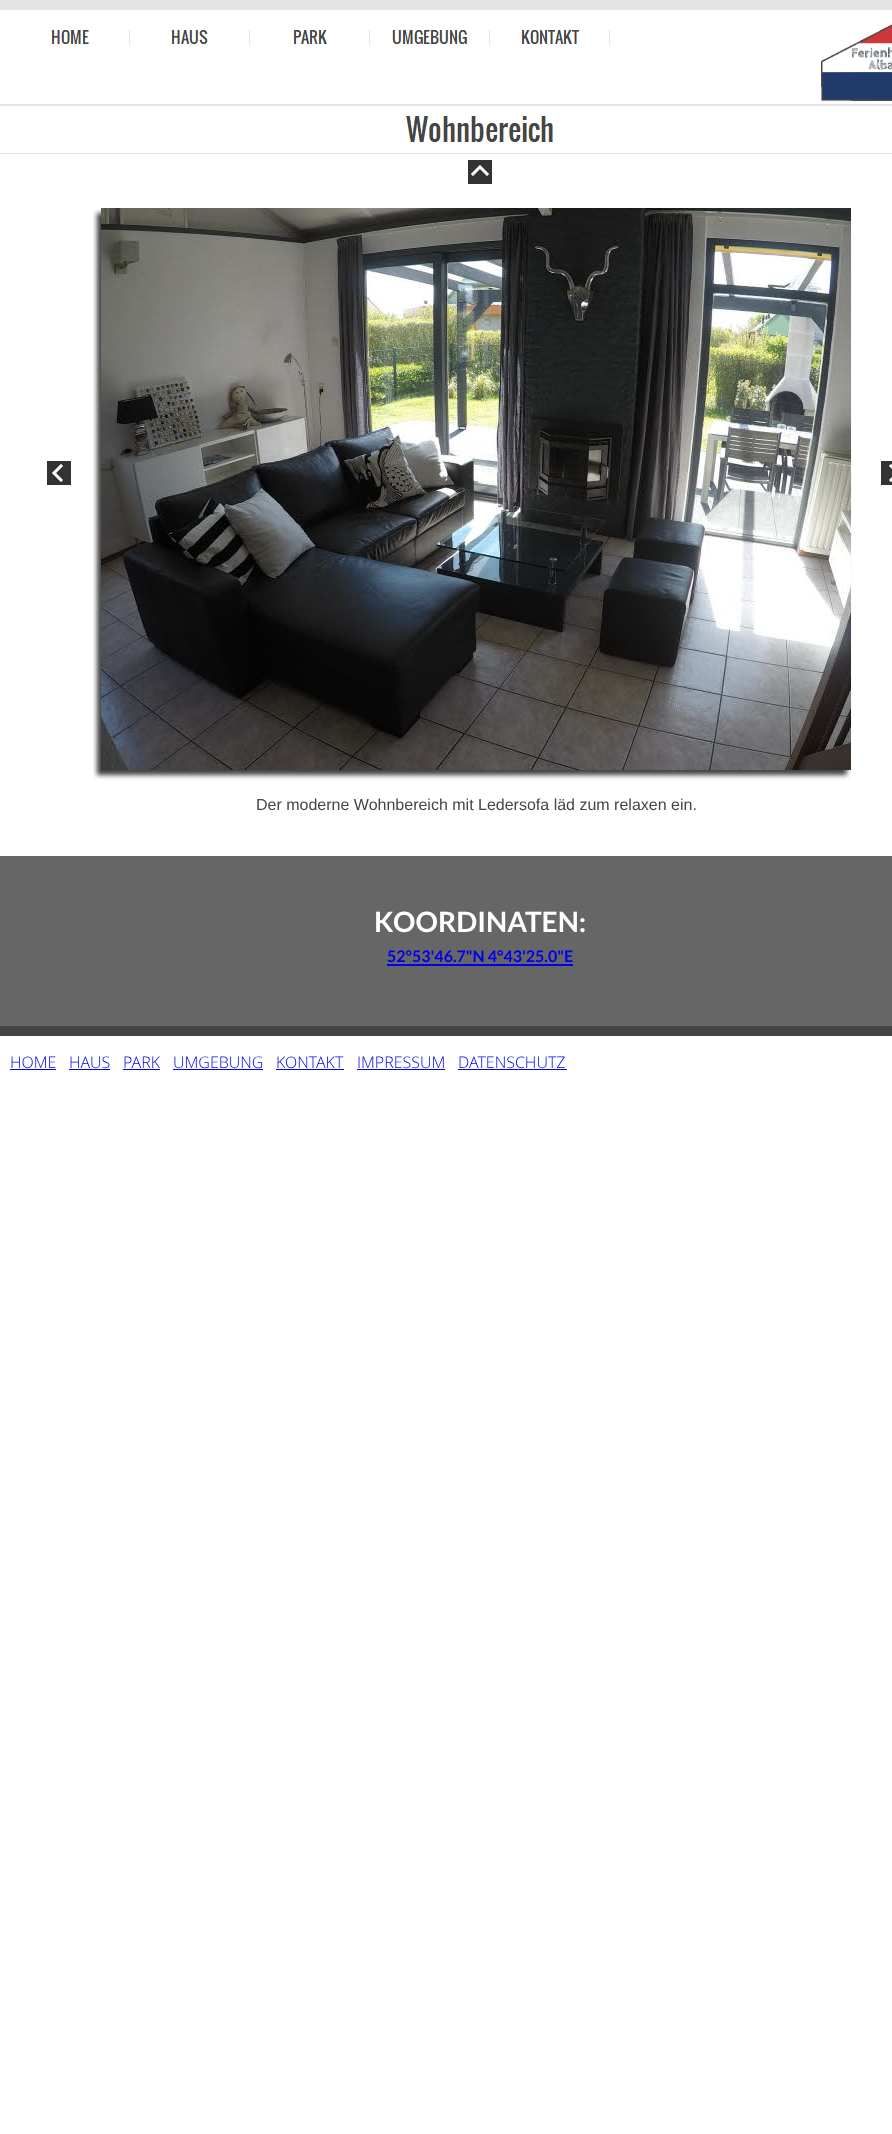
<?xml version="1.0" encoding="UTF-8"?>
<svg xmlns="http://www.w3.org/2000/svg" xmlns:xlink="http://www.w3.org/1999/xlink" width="892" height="2134">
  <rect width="100%" height="100%" fill="#ffffff" />
  <rect width="892" height="10" fill="#e4e4e4" />
  <image x="51" y="30" width="79" height="15" xlink:href="image1.png" />
  <image x="171" y="30" width="79" height="15" xlink:href="image2.png" />
  <image x="293" y="30" width="77" height="15" xlink:href="image3.png" />
  <image x="392" y="30" width="98" height="15" xlink:href="image4.png" />
  <image x="521" y="30" width="89" height="15" xlink:href="image5.png" />
  <image x="821" y="24" width="71" height="77" xlink:href="image6.png" />
  <image x="0" y="104" width="892" height="50" xlink:href="image7.png" />
  <image x="468" y="160" width="24" height="24" xlink:href="image8.png" />
  <image x="47" y="461" width="24" height="24" xlink:href="image9.png" />
  <image x="881" y="461" width="11" height="24" xlink:href="image10.png" />
  <image x="92" y="209" width="9" height="561" xlink:href="image11.png" />
  <image x="101" y="208" width="750" height="562" xlink:href="image12.png" />
  <image x="851" y="218" width="1" height="552" xlink:href="image13.png" />
  <image x="93" y="770" width="8" height="9" xlink:href="image14.png" />
  <image x="101" y="770" width="741" height="10" xlink:href="image15.png" />
  <image x="842" y="770" width="9" height="10" xlink:href="image16.png" />
  <image x="0" y="856" width="892" height="180" xlink:href="image17.png" />
  <rect x="387" y="964" width="186" height="2" fill="#0000ee" />
  <rect x="10" y="1069" width="46" height="1" fill="#0000ee" />
  <rect x="69" y="1069" width="41" height="1" fill="#0000ee" />
  <rect x="123" y="1069" width="37" height="1" fill="#0000ee" />
  <rect x="173" y="1069" width="90" height="1" fill="#0000ee" />
  <rect x="276" y="1069" width="68" height="1" fill="#0000ee" />
  <rect x="357" y="1069" width="88" height="1" fill="#0000ee" />
  <rect x="458" y="1069" width="109" height="1" fill="#0000ee" />
  <text x="256" y="810" style="font-family: Liberation Sans; font-size: 16px; fill: #454545">Der moderne Wohnbereich mit Ledersofa läd zum relaxen ein.</text>
  <text x="374" y="932" style="font-family: Lato; font-size: 28px; font-weight: bold; fill: #ffffff">KOORDINATEN:</text>
  <text x="387" y="962" style="font-family: Lato; font-size: 16px; font-weight: bold; fill: #0000ee">52°53'46.7"N 4°43'25.0"E</text>
  <text x="10" y="1068" style="font-family: Open Sans; font-size: 16px; font-weight: 300; fill: #0000ee">HOME</text>
  <text x="69" y="1068" style="font-family: Open Sans; font-size: 16px; font-weight: 300; fill: #0000ee">HAUS</text>
  <text x="123" y="1068" style="font-family: Open Sans; font-size: 16px; font-weight: 300; fill: #0000ee">PARK</text>
  <text x="173" y="1068" style="font-family: Open Sans; font-size: 16px; font-weight: 300; fill: #0000ee">UMGEBUNG</text>
  <text x="276" y="1068" style="font-family: Open Sans; font-size: 16px; font-weight: 300; fill: #0000ee">KONTAKT</text>
  <text x="357" y="1068" style="font-family: Open Sans; font-size: 16px; font-weight: 300; fill: #0000ee">IMPRESSUM</text>
  <text x="458" y="1068" style="font-family: Open Sans; font-size: 16px; font-weight: 300; fill: #0000ee">DATENSCHUTZ</text>
</svg>
